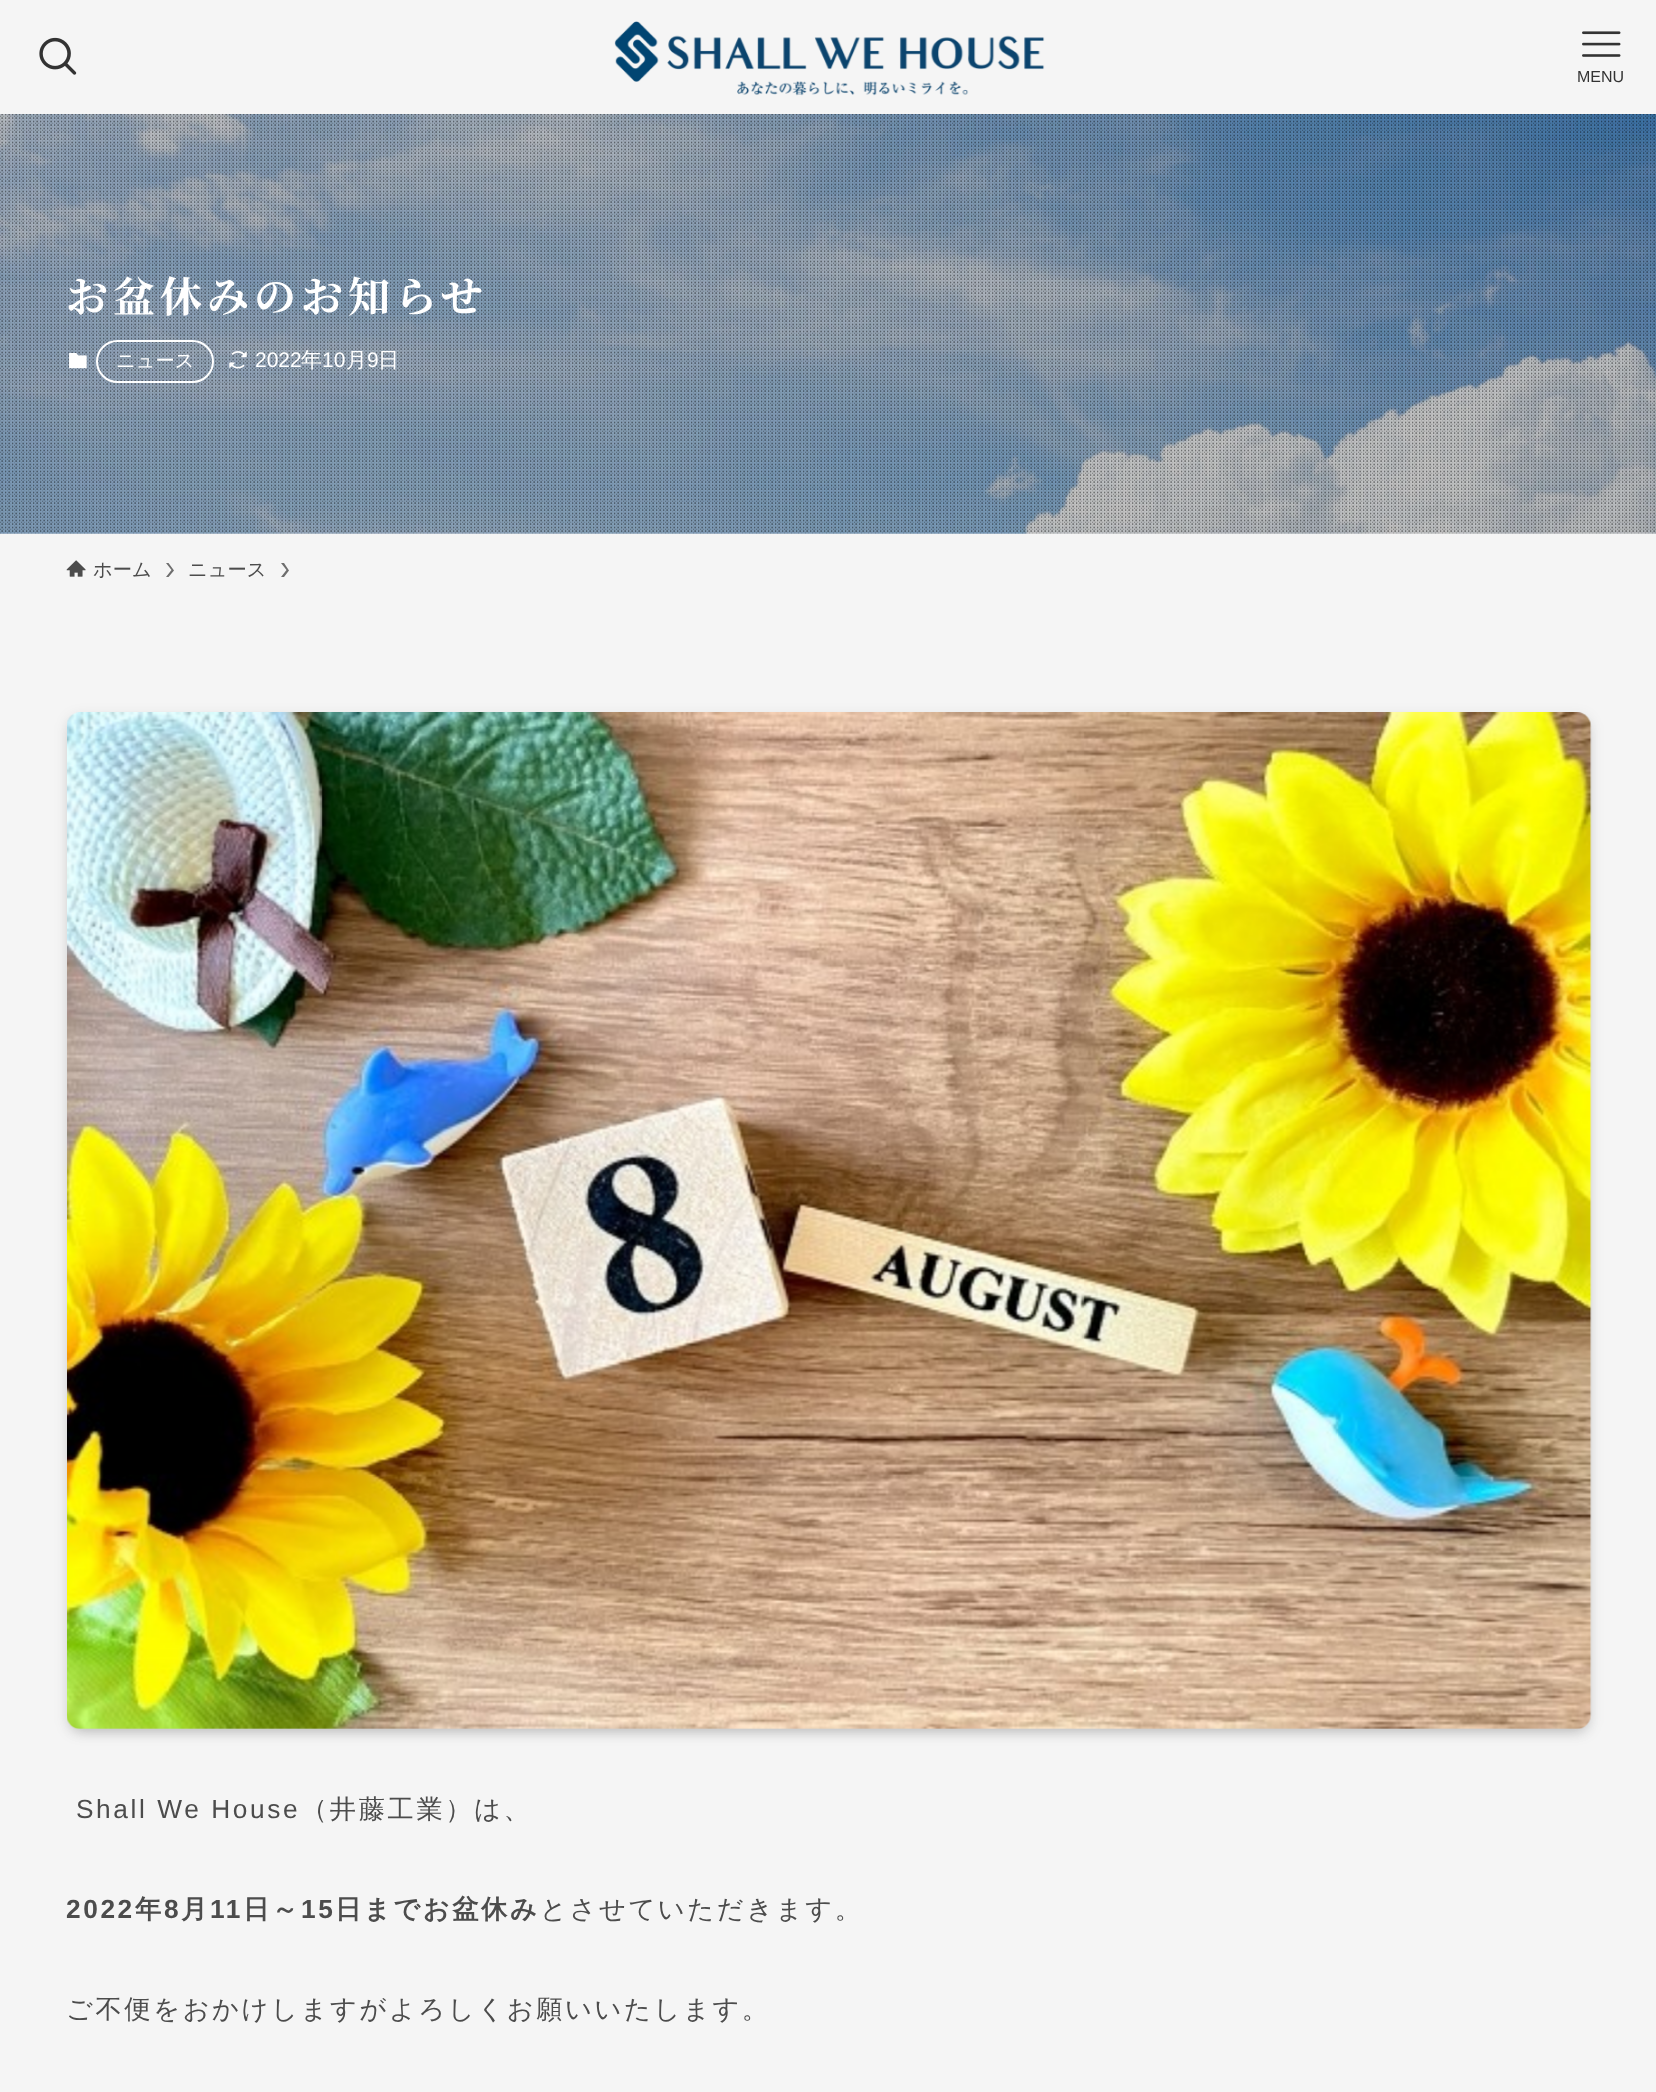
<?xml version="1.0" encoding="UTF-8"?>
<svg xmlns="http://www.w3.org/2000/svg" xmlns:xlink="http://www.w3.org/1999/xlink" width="1656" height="2092">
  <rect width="100%" height="100%" fill="#f5f5f5" />
  <image x="39" y="37" width="38" height="38" xlink:href="image1.png" />
  <image x="614" y="21" width="431" height="75" xlink:href="image2.png" />
  <image x="1582" y="31" width="39" height="26" xlink:href="image3.png" />
  <image x="0" y="114" width="1656" height="420" xlink:href="image4.png" />
  <image x="0" y="114" width="1656" height="420" xlink:href="image5.png" />
  <image x="69" y="353" width="18" height="16" xlink:href="image6.png" />
  <rect x="97" y="341" width="116" height="41" rx="20.5" fill="none" stroke="#ffffff" stroke-width="2" />
  <image x="229" y="351" width="18" height="18" xlink:href="image7.png" />
  <image x="66" y="560" width="20" height="17" xlink:href="image8.png" />
  <path d="M 168.5 563 h -2.5 l 5.5 7 l -5.5 7 h 2.5 l 5.5 -6.5 z" fill="#6e6e6e" />
  <path d="M 284 563 h -3 l 5.5 7 l -5.5 7 h 3 l 5 -6.5 z" fill="#6e6e6e" />
  <rect x="74" y="726" width="1510" height="1003" rx="7" fill="#000000" fill-opacity="0.2" filter="blur(7px)" />
  <rect x="67" y="716" width="1524" height="1017" rx="14" fill="#000000" fill-opacity="0.1" filter="blur(7px)" />
  <image x="67" y="712" width="1525" height="1017" xlink:href="image9.png" />
  <text x="1577" y="82" style="font-family: Liberation Sans; font-size: 16px; fill: #333333">MENU</text>
  <text x="66" y="312" style="font-family: Noto Serif JP; font-size: 42px; font-weight: bold; letter-spacing: 5px; fill: #ffffff">お盆休みのお知らせ</text>
  <text x="116" y="367" style="font-family: WenQuanYi Zen Hei; font-size: 19.25px; font-weight: 500; fill: #ffffff">ニュース</text>
  <text x="255" y="367" style="font-family: Liberation Sans; font-size: 21px; fill: #ffffff">2022</text>
  <text x="301" y="367" style="font-family: WenQuanYi Zen Hei; font-size: 21px; font-weight: 500; fill: #ffffff">年</text>
  <text x="322" y="367" style="font-family: Liberation Sans; font-size: 21px; fill: #ffffff">10</text>
  <text x="346" y="367" style="font-family: WenQuanYi Zen Hei; font-size: 21px; font-weight: 500; fill: #ffffff">月</text>
  <text x="367" y="367" style="font-family: Liberation Sans; font-size: 21px; fill: #ffffff">9</text>
  <text x="378" y="367" style="font-family: WenQuanYi Zen Hei; font-size: 21px; font-weight: 500; fill: #ffffff">日</text>
  <text x="93" y="576" style="font-family: WenQuanYi Zen Hei; font-size: 19.25px; font-weight: 500; fill: #4c4c4c">ホーム</text>
  <text x="188" y="576" style="font-family: WenQuanYi Zen Hei; font-size: 19.25px; font-weight: 500; fill: #4c4c4c">ニュース</text>
  <text x="76" y="1818" style="font-family: Liberation Sans; font-size: 26.25px; letter-spacing: 2.6px; fill: #4c4c4c">Shall We House</text>
  <text x="301" y="1818" style="font-family: WenQuanYi Zen Hei; font-size: 26.25px; font-weight: 500; letter-spacing: 2.6px; fill: #4c4c4c">（井藤工業）は、</text>
  <text x="66" y="1918" style="font-family: Liberation Sans; font-size: 26.25px; font-weight: bold; letter-spacing: 2.6px; fill: #4c4c4c">2022</text>
  <text x="135" y="1918" style="font-family: WenQuanYi Zen Hei; font-size: 26.25px; font-weight: bold; letter-spacing: 2.6px; fill: #4c4c4c">年</text>
  <text x="164" y="1918" style="font-family: Liberation Sans; font-size: 26.25px; font-weight: bold; letter-spacing: 2.6px; fill: #4c4c4c">8</text>
  <text x="181" y="1918" style="font-family: WenQuanYi Zen Hei; font-size: 26.25px; font-weight: bold; letter-spacing: 2.6px; fill: #4c4c4c">月</text>
  <text x="210" y="1918" style="font-family: Liberation Sans; font-size: 26.25px; font-weight: bold; letter-spacing: 2.6px; fill: #4c4c4c">11</text>
  <text x="243" y="1918" style="font-family: WenQuanYi Zen Hei; font-size: 26.25px; font-weight: bold; letter-spacing: 2.6px; fill: #4c4c4c">日～</text>
  <text x="301" y="1918" style="font-family: Liberation Sans; font-size: 26.25px; font-weight: bold; letter-spacing: 2.6px; fill: #4c4c4c">15</text>
  <text x="335" y="1918" style="font-family: WenQuanYi Zen Hei; font-size: 26.25px; font-weight: bold; letter-spacing: 2.6px; fill: #4c4c4c">日までお盆休み</text>
  <text x="540" y="1918" style="font-family: WenQuanYi Zen Hei; font-size: 26.25px; font-weight: 500; letter-spacing: 2.6px; fill: #4c4c4c">とさせていただきます。</text>
  <text x="66" y="2018" style="font-family: WenQuanYi Zen Hei; font-size: 26.25px; font-weight: 500; letter-spacing: 2.6px; fill: #4c4c4c">ご不便をおかけしますがよろしくお願いいたします。</text>
</svg>
